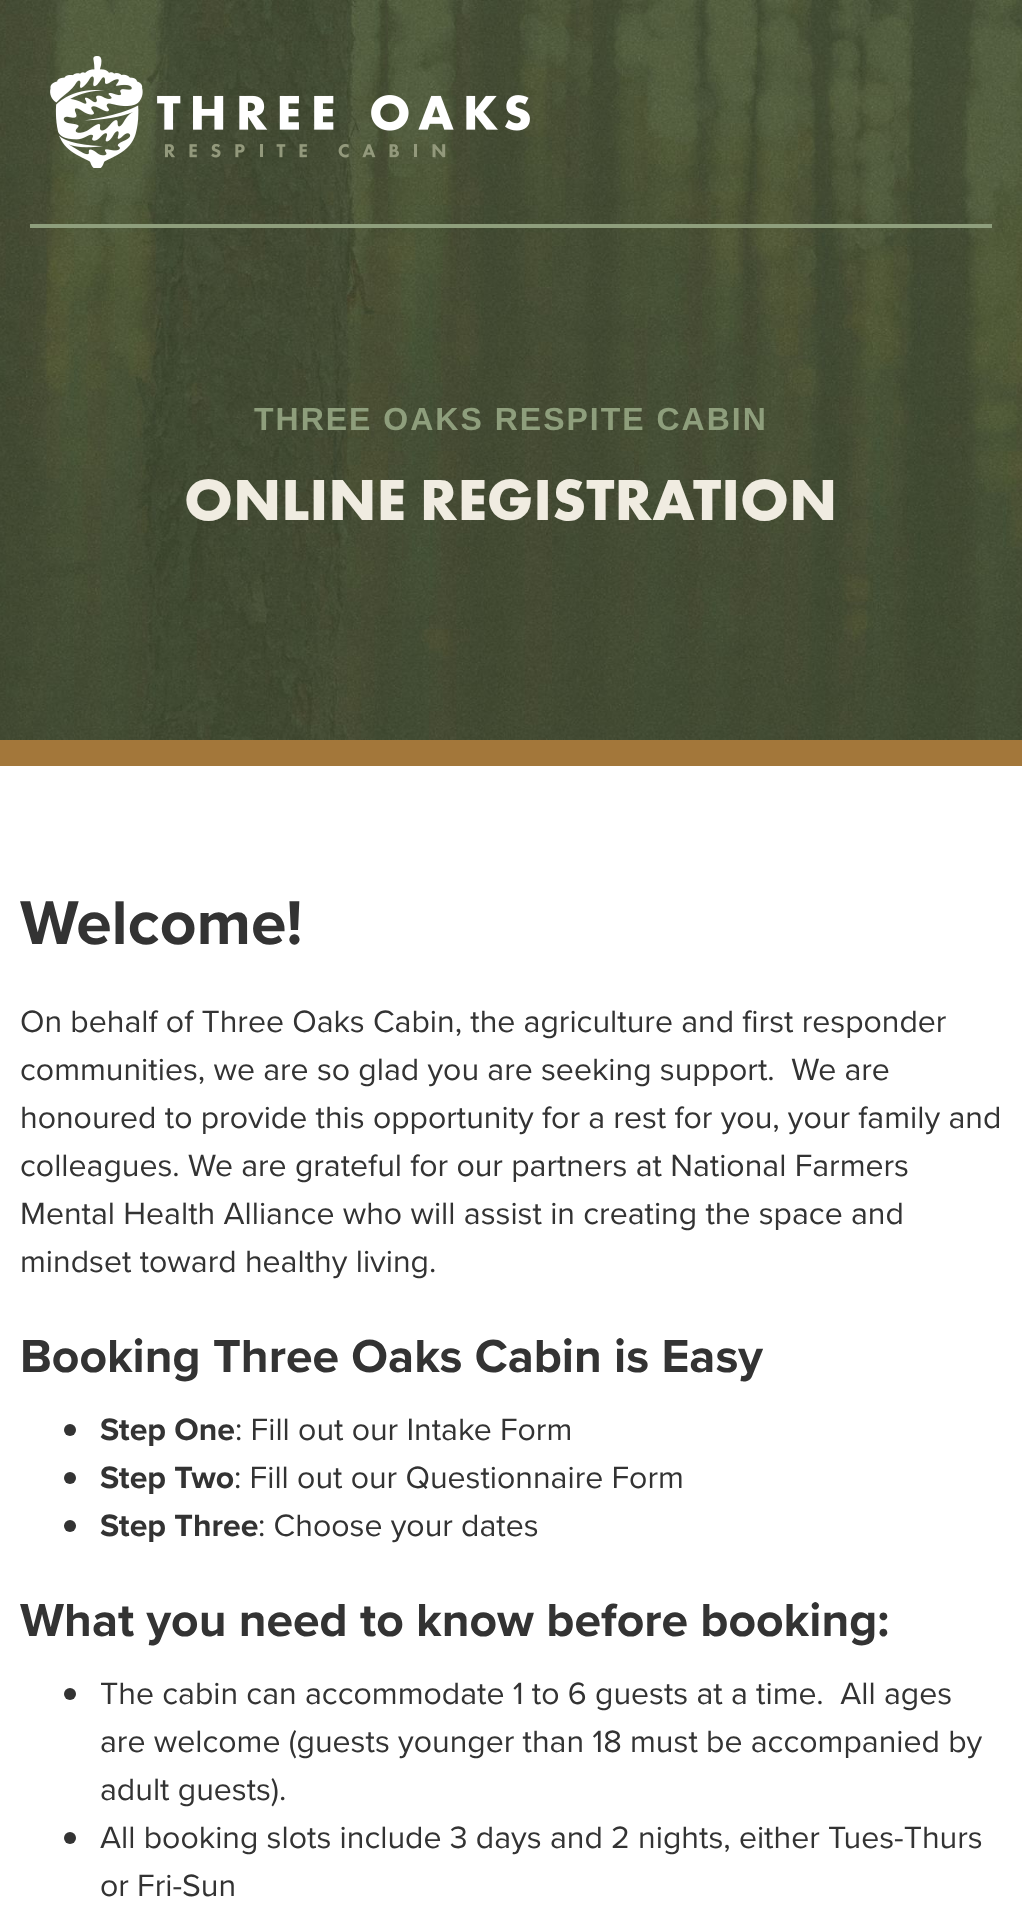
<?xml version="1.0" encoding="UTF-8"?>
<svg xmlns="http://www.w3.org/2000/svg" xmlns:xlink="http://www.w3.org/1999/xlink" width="1022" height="1905">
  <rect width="100%" height="100%" fill="#ffffff" />
  <image x="0" y="0" width="1022" height="740" xlink:href="image2.png" />
  <rect x="30" y="224" width="962" height="4" fill="#8e9e7c" />
  <image x="50" y="56" width="480" height="112" xlink:href="image1.png" />
  <rect y="740" width="1022" height="26" fill="#a3773a" />
  <circle cx="70" cy="1430" r="6" fill="#333333" />
  <circle cx="70" cy="1478" r="6" fill="#333333" />
  <circle cx="70" cy="1526" r="6" fill="#333333" />
  <circle cx="70" cy="1694" r="6" fill="#333333" />
  <circle cx="70" cy="1838" r="6" fill="#333333" />
  <text x="254" y="430" style="font-family: Liberation Sans; font-size: 32px; font-weight: bold; letter-spacing: 2px; fill: #8e9e7c">THREE OAKS RESPITE CABIN</text>
  <text x="184" y="520" style="font-family: Futura PT; font-size: 60px; font-weight: bold; fill: #f0ece1">ONLINE REGISTRATION</text>
  <text x="20" y="944" style="font-family: Proxima Nova; font-size: 64px; font-weight: bold; fill: #333333">Welcome!</text>
  <text x="20" y="1032" style="font-family: Proxima Nova; font-size: 32px; fill: #333333">On behalf of Three Oaks Cabin, the agriculture and first responder</text>
  <text x="20" y="1080" style="font-family: Proxima Nova; font-size: 32px; fill: #333333" xml:space="preserve">communities, we are so glad you are seeking support.  We are</text>
  <text x="20" y="1128" style="font-family: Proxima Nova; font-size: 32px; fill: #333333">honoured to provide this opportunity for a rest for you, your family and</text>
  <text x="20" y="1176" style="font-family: Proxima Nova; font-size: 32px; fill: #333333">colleagues. We are grateful for our partners at National Farmers</text>
  <text x="20" y="1224" style="font-family: Proxima Nova; font-size: 32px; fill: #333333">Mental Health Alliance who will assist in creating the space and</text>
  <text x="20" y="1272" style="font-family: Proxima Nova; font-size: 32px; fill: #333333">mindset toward healthy living.</text>
  <text x="20" y="1372" style="font-family: Proxima Nova; font-size: 48px; font-weight: bold; fill: #333333">Booking Three Oaks Cabin is Easy</text>
  <text x="100" y="1440" style="font-family: Proxima Nova; font-size: 32px; font-weight: bold; fill: #333333">Step One</text>
  <text x="235" y="1440" style="font-family: Proxima Nova; font-size: 32px; fill: #333333">: Fill out our Intake Form</text>
  <text x="100" y="1488" style="font-family: Proxima Nova; font-size: 32px; font-weight: bold; fill: #333333">Step Two</text>
  <text x="234" y="1488" style="font-family: Proxima Nova; font-size: 32px; fill: #333333">: Fill out our Questionnaire Form</text>
  <text x="100" y="1536" style="font-family: Proxima Nova; font-size: 32px; font-weight: bold; fill: #333333">Step Three</text>
  <text x="258" y="1536" style="font-family: Proxima Nova; font-size: 32px; fill: #333333">: Choose your dates</text>
  <text x="20" y="1636" style="font-family: Proxima Nova; font-size: 48px; font-weight: bold; fill: #333333">What you need to know before booking:</text>
  <text x="100" y="1704" style="font-family: Proxima Nova; font-size: 32px; fill: #333333" xml:space="preserve">The cabin can accommodate 1 to 6 guests at a time.  All ages</text>
  <text x="100" y="1752" style="font-family: Proxima Nova; font-size: 32px; fill: #333333">are welcome (guests younger than 18 must be accompanied by</text>
  <text x="100" y="1800" style="font-family: Proxima Nova; font-size: 32px; fill: #333333">adult guests).</text>
  <text x="100" y="1848" style="font-family: Proxima Nova; font-size: 32px; fill: #333333">All booking slots include 3 days and 2 nights, either Tues-Thurs</text>
  <text x="100" y="1896" style="font-family: Proxima Nova; font-size: 32px; fill: #333333">or Fri-Sun</text>
</svg>
